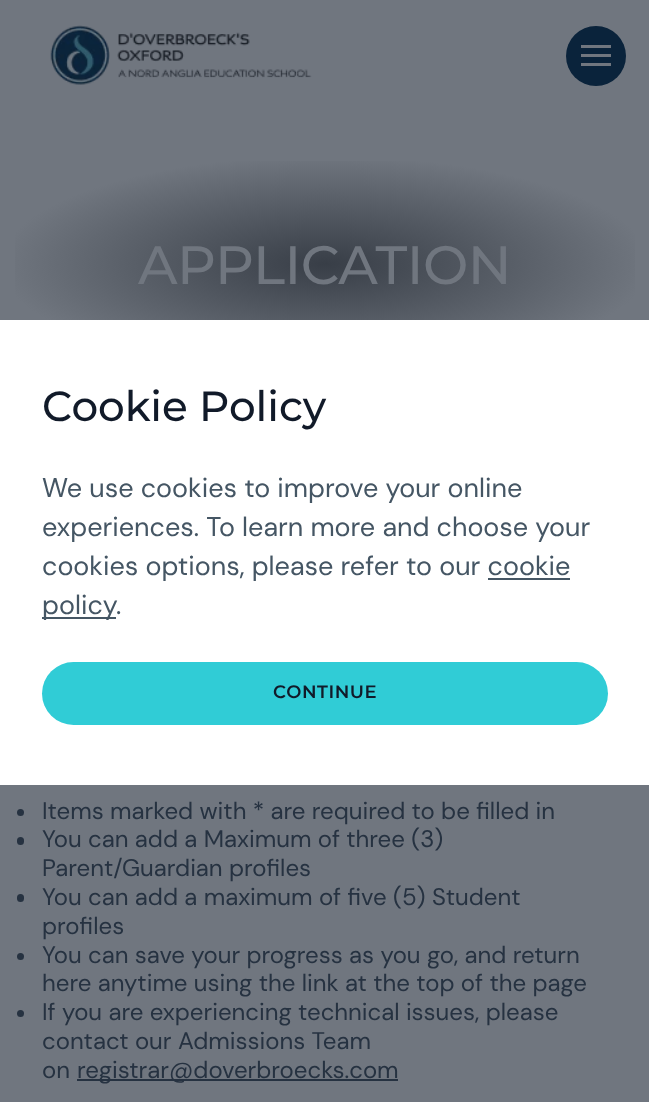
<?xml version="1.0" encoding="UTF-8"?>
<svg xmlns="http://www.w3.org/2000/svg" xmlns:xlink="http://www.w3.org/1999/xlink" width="649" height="1102">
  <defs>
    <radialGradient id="g1" gradientUnits="userSpaceOnUse" cx="0" cy="0" r="1" gradientTransform="matrix(325 0 0 108 325 264)"><stop offset="0" stop-color="#383e47" /><stop offset="1" stop-color="#70767f" /></radialGradient>
  </defs>
  <rect width="100%" height="100%" fill="#70767f" />
  <image x="50" y="25" width="262" height="60" xlink:href="image1.png" />
  <circle cx="596" cy="56" r="30" fill="#0a233b" />
  <rect x="581" y="45" width="30" height="3" fill="#70767f" />
  <rect x="581" y="54" width="30" height="3" fill="#70767f" />
  <rect x="581" y="63" width="30" height="3" fill="#70767f" />
  <rect x="15" y="161" width="620" height="159" fill="url(#g1)" />
  <circle cx="20.5" cy="812.5" r="3.5" fill="#263241" />
  <rect x="17" y="837" width="7" height="8" rx="3.5" fill="#263241" />
  <rect x="17" y="894" width="7" height="8" rx="3.5" fill="#263241" />
  <circle cx="20.5" cy="956.5" r="3.5" fill="#263241" />
  <circle cx="20.5" cy="1013.5" r="3.5" fill="#263241" />
  <rect x="77" y="1079" width="321" height="2" fill="#263241" />
  <rect y="320" width="649" height="465" fill="#ffffff" />
  <rect x="488" y="578" width="82" height="2" fill="#455664" />
  <rect x="42" y="617" width="74" height="2" fill="#455664" />
  <rect x="42" y="662" width="566" height="63" rx="31.5" fill="#30ccd6" />
  <text x="138" y="284" style="font-family: Montserrat; font-size: 54px; font-weight: 500; letter-spacing: -0.5px; fill: #70767f">APPLICATION</text>
  <text x="42" y="819" style="font-family: DM Sans; font-size: 24px; fill: #263241">Items marked with * are required to be filled in</text>
  <text x="42" y="847" style="font-family: DM Sans; font-size: 24px; fill: #263241">You can add a Maximum of three (3)</text>
  <text x="42" y="876" style="font-family: DM Sans; font-size: 24px; fill: #263241">Parent/Guardian profiles</text>
  <text x="42" y="905" style="font-family: DM Sans; font-size: 24px; fill: #263241">You can add a maximum of five (5) Student</text>
  <text x="42" y="934" style="font-family: DM Sans; font-size: 24px; fill: #263241">profiles</text>
  <text x="42" y="963" style="font-family: DM Sans; font-size: 24px; fill: #263241">You can save your progress as you go, and return</text>
  <text x="42" y="991" style="font-family: DM Sans; font-size: 24px; fill: #263241">here anytime using the link at the top of the page</text>
  <text x="42" y="1020" style="font-family: DM Sans; font-size: 24px; fill: #263241">If you are experiencing technical issues, please</text>
  <text x="42" y="1049" style="font-family: DM Sans; font-size: 24px; fill: #263241">contact our Admissions Team</text>
  <text x="42" y="1078" style="font-family: DM Sans; font-size: 24px; fill: #263241">on</text>
  <text x="77" y="1078" style="font-family: DM Sans; font-size: 24px; fill: #263241">registrar@doverbroecks.com</text>
  <text x="42" y="421" style="font-family: Montserrat; font-size: 42px; font-weight: 500; fill: #111a29">Cookie Policy</text>
  <text x="42" y="497" style="font-family: DM Sans; font-size: 27px; fill: #455664">We use cookies to improve your online</text>
  <text x="42" y="536" style="font-family: DM Sans; font-size: 27px; fill: #455664">experiences. To learn more and choose your</text>
  <text x="42" y="575" style="font-family: DM Sans; font-size: 27px; fill: #455664">cookies options, please refer to our cookie</text>
  <text x="42" y="614" style="font-family: DM Sans; font-size: 27px; fill: #455664">policy</text>
  <text x="116" y="614" style="font-family: DM Sans; font-size: 27px; fill: #455664">.</text>
  <text x="273" y="698" style="font-family: Montserrat; font-size: 18px; font-weight: 600; letter-spacing: 0.5px; fill: #111a29">CONTINUE</text>
</svg>
